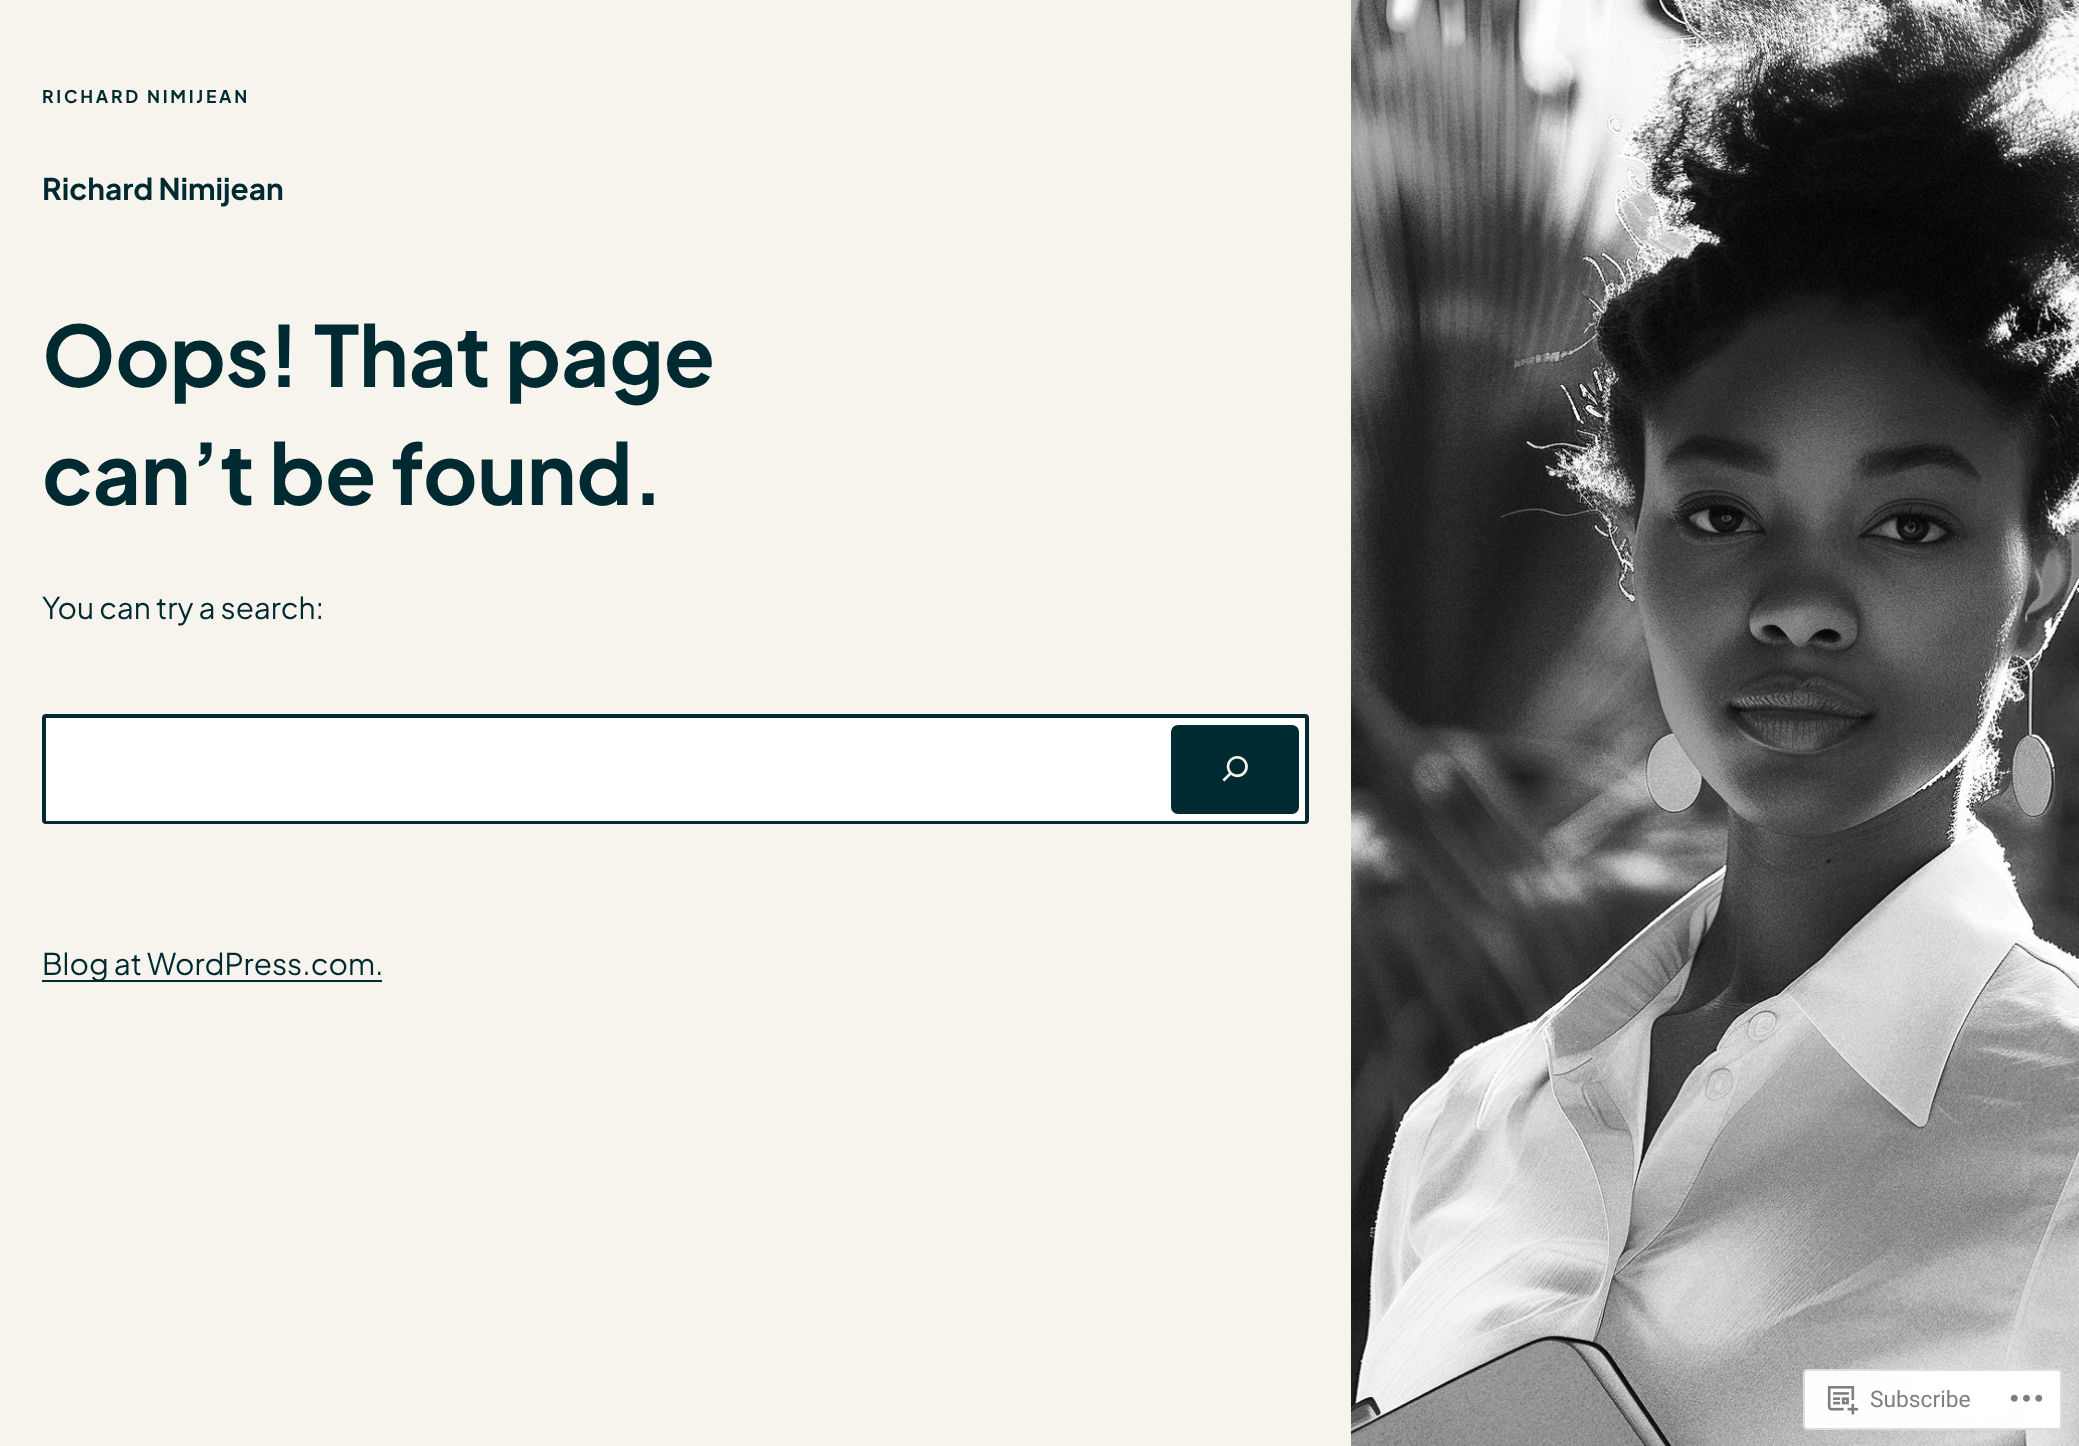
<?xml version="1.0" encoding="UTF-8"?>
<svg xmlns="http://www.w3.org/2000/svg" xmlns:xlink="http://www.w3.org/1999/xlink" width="2079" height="1446">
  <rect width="100%" height="100%" fill="#f6f4ed" />
  <rect x="43" y="715" width="1265" height="108" rx="3" fill="none" stroke="#002a32" stroke-width="2" />
  <rect x="45" y="717" width="1261" height="105" fill="#ffffff" stroke="#002a32" stroke-width="2" />
  <rect x="1171" y="725" width="128" height="89" rx="7" fill="#002a32" />
  <image x="1222" y="756" width="26" height="26" xlink:href="image1.png" />
  <rect x="42" y="980" width="340" height="2" fill="#002a32" />
  <image x="1351" y="0" width="728" height="1446" xlink:href="image2.png" />
  <rect x="1803" y="1369" width="259" height="61" rx="5" fill="#ffffff" fill-opacity="0.98" />
  <rect x="1804" y="1370" width="257" height="59" rx="4" fill="none" stroke="#dcdcde" stroke-opacity="0.98" stroke-width="2" />
  <image x="1827" y="1386" width="32" height="29" xlink:href="image3.png" />
  <image x="2010" y="1394" width="33" height="8" xlink:href="image4.png" />
  <text x="42" y="103" style="font-family: Plus Jakarta Sans; font-size: 17.5px; font-weight: bold; letter-spacing: 2.75px; fill: #002a32">RICHARD NIMIJEAN</text>
  <text x="42" y="200" style="font-family: Plus Jakarta Sans; font-size: 29.75px; font-weight: bold; fill: #002a32">Richard Nimijean</text>
  <text x="42" y="387" style="font-family: Plus Jakarta Sans; font-size: 83.75px; font-weight: bold; letter-spacing: -0.25px; fill: #002a32">Oops! That page</text>
  <text x="42" y="505" style="font-family: Plus Jakarta Sans; font-size: 83.75px; font-weight: bold; letter-spacing: -0.25px; fill: #002a32">can’t be found.</text>
  <text x="42" y="619" style="font-family: Plus Jakarta Sans; font-size: 29.75px; fill: #002a32">You can try a search:</text>
  <text x="42" y="975" style="font-family: Plus Jakarta Sans; font-size: 29.75px; fill: #002a32">Blog at WordPress.com.</text>
  <text x="1870" y="1407" style="font-family: Roboto; font-size: 22.75px; fill: #7b7f84">Subscribe</text>
</svg>
